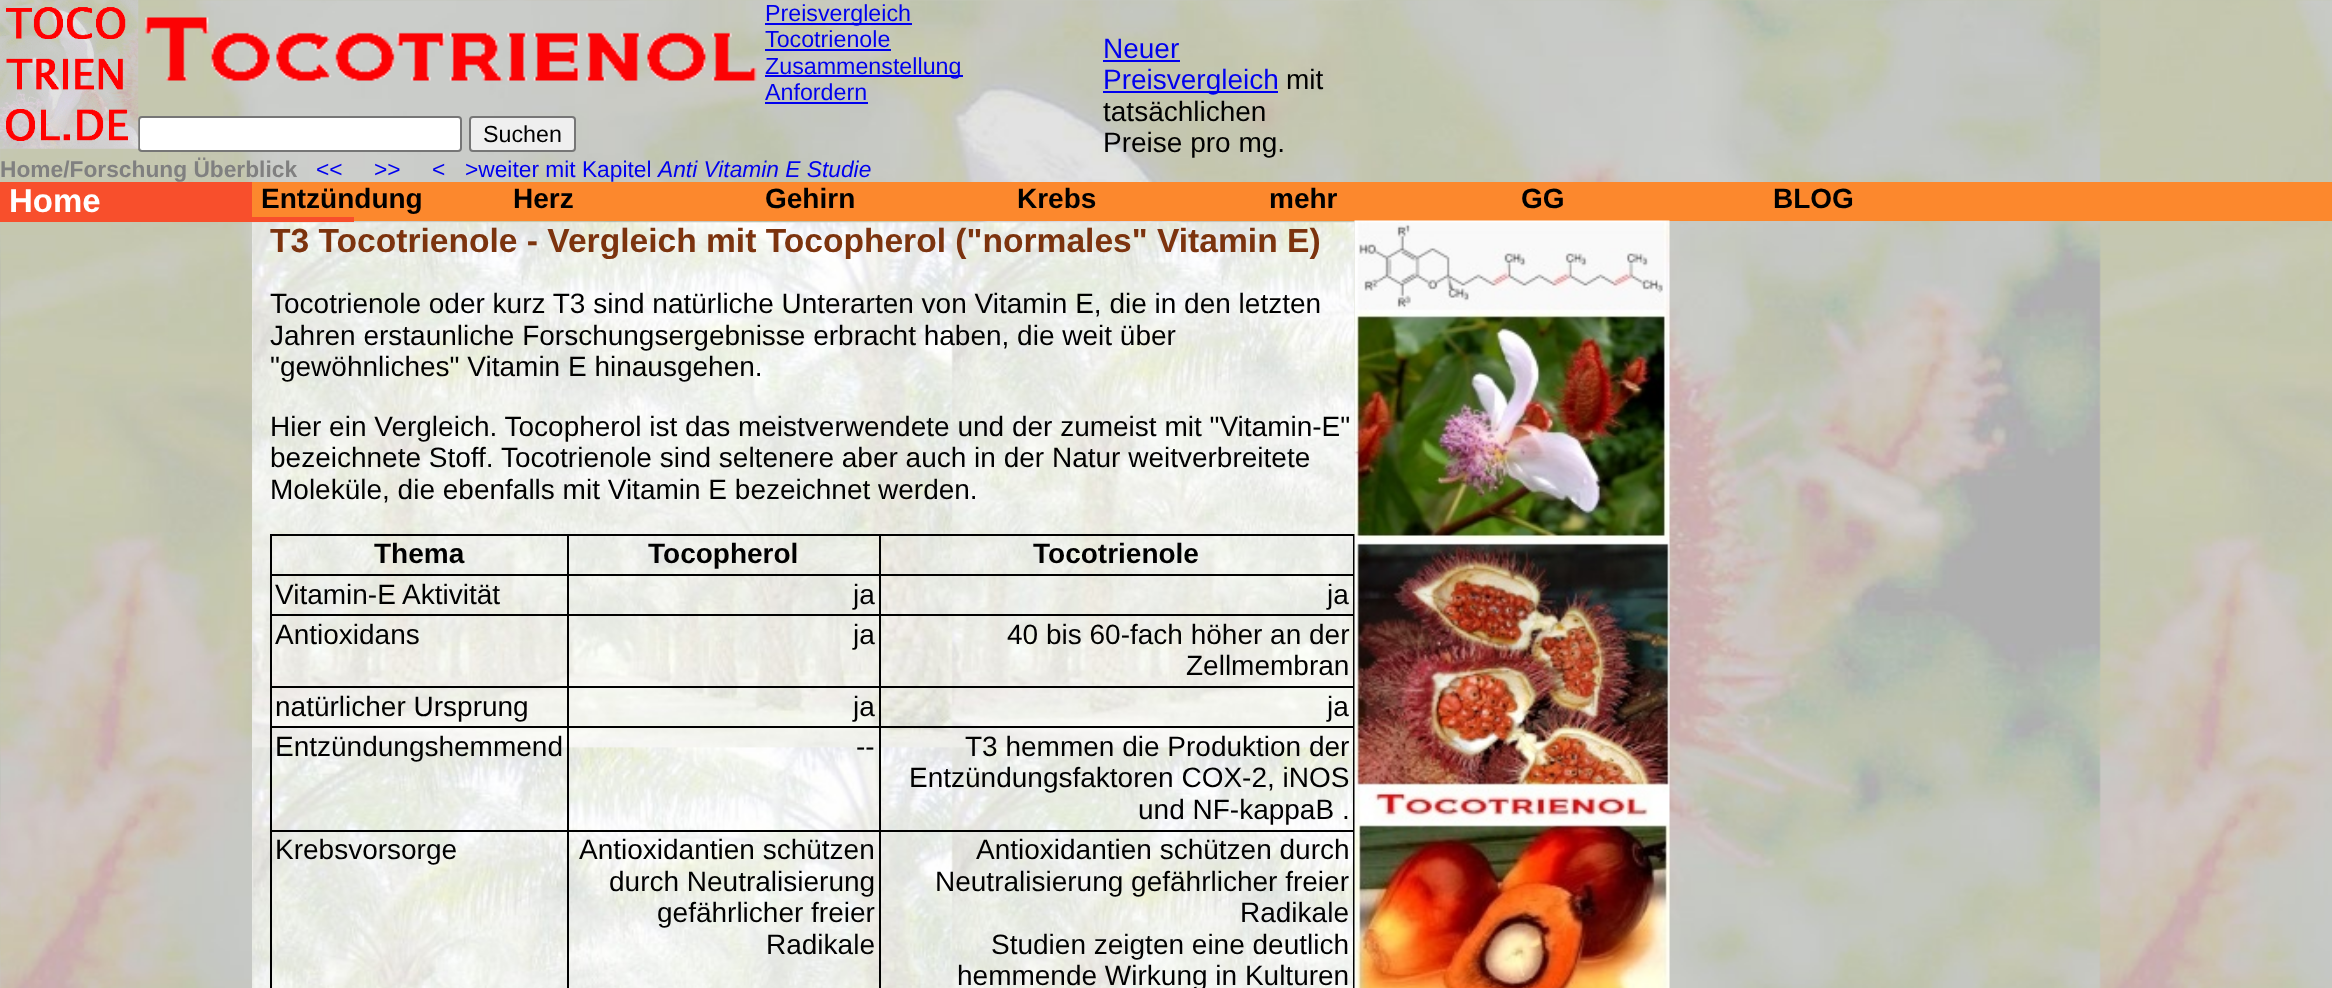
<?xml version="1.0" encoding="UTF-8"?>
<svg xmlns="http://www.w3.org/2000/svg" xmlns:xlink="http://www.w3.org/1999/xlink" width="2332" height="988">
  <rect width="100%" height="100%" fill="#ffffff" />
  <image x="0" y="0" width="2332" height="988" xlink:href="image1.png" />
  <rect x="139" y="117" width="322" height="34" rx="3" fill="#ffffff" stroke="#767676" stroke-width="2" />
  <image x="0" y="0" width="139" height="149" xlink:href="image2.png" />
  <image x="145" y="17" width="612" height="64" xlink:href="image3.png" />
  <rect x="765" y="23" width="147" height="2" fill="#0000ee" />
  <rect x="765" y="49" width="126" height="2" fill="#0000ee" />
  <rect x="765" y="75" width="198" height="2" fill="#0000ee" />
  <rect x="765" y="102" width="103" height="2" fill="#0000ee" />
  <rect x="470" y="117" width="105" height="34" rx="3" fill="#efefef" stroke="#767676" stroke-width="2" />
  <rect x="1103" y="60" width="77" height="2" fill="#0000ee" />
  <rect x="1103" y="91" width="175" height="2" fill="#0000ee" />
  <rect x="354" y="182" width="1978" height="39" fill="#fc882d" />
  <rect y="182" width="354" height="40" fill="#f84f2c" />
  <rect x="252" y="182" width="102" height="35" fill="#fc882d" />
  <image x="252" y="222" width="1103" height="766" xlink:href="image4.png" />
  <rect x="270" y="534" width="1085" height="2" fill="#000000" />
  <rect x="1353" y="534" width="2" height="454" fill="#000000" />
  <rect x="270" y="534" width="2" height="454" fill="#000000" />
  <rect x="879" y="574" width="476" height="2" fill="#000000" />
  <rect x="879" y="614" width="476" height="2" fill="#000000" />
  <rect x="879" y="686" width="476" height="2" fill="#000000" />
  <rect x="879" y="726" width="476" height="2" fill="#000000" />
  <rect x="879" y="830" width="476" height="2" fill="#000000" />
  <rect x="879" y="830" width="2" height="158" fill="#000000" />
  <rect x="567" y="830" width="313" height="2" fill="#000000" />
  <rect x="879" y="726" width="2" height="105" fill="#000000" />
  <rect x="567" y="726" width="313" height="2" fill="#000000" />
  <rect x="879" y="686" width="2" height="42" fill="#000000" />
  <rect x="567" y="686" width="313" height="2" fill="#000000" />
  <rect x="879" y="614" width="2" height="74" fill="#000000" />
  <rect x="567" y="614" width="313" height="2" fill="#000000" />
  <rect x="879" y="574" width="2" height="42" fill="#000000" />
  <rect x="567" y="574" width="313" height="2" fill="#000000" />
  <rect x="567" y="830" width="2" height="158" fill="#000000" />
  <rect x="270" y="830" width="299" height="2" fill="#000000" />
  <rect x="567" y="726" width="2" height="105" fill="#000000" />
  <rect x="270" y="726" width="299" height="2" fill="#000000" />
  <rect x="567" y="686" width="2" height="42" fill="#000000" />
  <rect x="270" y="686" width="299" height="2" fill="#000000" />
  <rect x="567" y="614" width="2" height="74" fill="#000000" />
  <rect x="270" y="614" width="299" height="2" fill="#000000" />
  <rect x="567" y="574" width="2" height="42" fill="#000000" />
  <rect x="270" y="574" width="299" height="2" fill="#000000" />
  <rect x="567" y="534" width="2" height="42" fill="#000000" />
  <rect x="879" y="534" width="2" height="42" fill="#000000" />
  <image x="1354" y="220" width="316" height="768" xlink:href="image5.png" />
  <text x="765" y="21" style="font-family: Liberation Sans; font-size: 23.25px; fill: #0000ee">Preisvergleich</text>
  <text x="765" y="47" style="font-family: Liberation Sans; font-size: 23.25px; fill: #0000ee">Tocotrienole</text>
  <text x="765" y="74" style="font-family: Liberation Sans; font-size: 23.25px; fill: #0000ee">Zusammenstellung</text>
  <text x="765" y="100" style="font-family: Liberation Sans; font-size: 23.25px; fill: #0000ee">Anfordern</text>
  <text x="483" y="142" style="font-family: Liberation Sans; font-size: 23.25px; fill: #000000">Suchen</text>
  <text x="1103" y="58" style="font-family: Liberation Sans; font-size: 28px; fill: #0000ee">Neuer</text>
  <text x="1103" y="89" style="font-family: Liberation Sans; font-size: 28px; fill: #0000ee">Preisvergleich</text>
  <text x="1286" y="89" style="font-family: Liberation Sans; font-size: 28px; fill: #000000">mit</text>
  <text x="1103" y="121" style="font-family: Liberation Sans; font-size: 28px; fill: #000000">tatsächlichen</text>
  <text x="1103" y="152" style="font-family: Liberation Sans; font-size: 28px; fill: #000000">Preise pro mg.</text>
  <text x="0" y="177" style="font-family: Liberation Sans; font-size: 22.75px; font-weight: bold; fill: #808080">Home/Forschung Überblick</text>
  <text x="316" y="177" style="font-family: Liberation Sans; font-size: 22.75px; fill: #0000ee">&lt;&lt;</text>
  <text x="374" y="177" style="font-family: Liberation Sans; font-size: 22.75px; fill: #0000ee">&gt;&gt;</text>
  <text x="432" y="177" style="font-family: Liberation Sans; font-size: 22.75px; fill: #0000ee">&lt;</text>
  <text x="465" y="177" style="font-family: Liberation Sans; font-size: 22.75px; fill: #0000ee">&gt;weiter mit Kapitel</text>
  <text x="658" y="177" style="font-family: Liberation Sans; font-size: 22.75px; font-style: italic; fill: #0000ee">Anti Vitamin E Studie</text>
  <text x="9" y="212" style="font-family: Liberation Sans; font-size: 33px; font-weight: bold; fill: #ffffff">Home</text>
  <text x="261" y="208" style="font-family: Liberation Sans; font-size: 28px; font-weight: bold; fill: #000000">Entzündung</text>
  <text x="513" y="208" style="font-family: Liberation Sans; font-size: 28px; font-weight: bold; fill: #000000">Herz</text>
  <text x="765" y="208" style="font-family: Liberation Sans; font-size: 28px; font-weight: bold; fill: #000000">Gehirn</text>
  <text x="1017" y="208" style="font-family: Liberation Sans; font-size: 28px; font-weight: bold; fill: #000000">Krebs</text>
  <text x="1269" y="208" style="font-family: Liberation Sans; font-size: 28px; font-weight: bold; fill: #000000">mehr</text>
  <text x="1521" y="208" style="font-family: Liberation Sans; font-size: 28px; font-weight: bold; fill: #000000">GG</text>
  <text x="1773" y="208" style="font-family: Liberation Sans; font-size: 28px; font-weight: bold; fill: #000000">BLOG</text>
  <text x="270" y="252" style="font-family: Liberation Sans; font-size: 33.6px; font-weight: bold; fill: #7c330e">T3 Tocotrienole - Vergleich mit Tocopherol ("normales" Vitamin E)</text>
  <text x="270" y="313" style="font-family: Liberation Sans; font-size: 28px; fill: #000000">Tocotrienole oder kurz T3 sind natürliche Unterarten von Vitamin E, die in den letzten</text>
  <text x="270" y="345" style="font-family: Liberation Sans; font-size: 28px; fill: #000000">Jahren erstaunliche Forschungsergebnisse erbracht haben, die weit über</text>
  <text x="270" y="376" style="font-family: Liberation Sans; font-size: 28px; fill: #000000">"gewöhnliches" Vitamin E hinausgehen.</text>
  <text x="270" y="436" style="font-family: Liberation Sans; font-size: 28px; fill: #000000">Hier ein Vergleich. Tocopherol ist das meistverwendete und der zumeist mit "Vitamin-E"</text>
  <text x="270" y="467" style="font-family: Liberation Sans; font-size: 28px; fill: #000000">bezeichnete Stoff. Tocotrienole sind seltenere aber auch in der Natur weitverbreitete</text>
  <text x="270" y="499" style="font-family: Liberation Sans; font-size: 28px; fill: #000000">Moleküle, die ebenfalls mit Vitamin E bezeichnet werden.</text>
  <text x="374" y="563" style="font-family: Liberation Sans; font-size: 28px; font-weight: bold; fill: #000000">Thema</text>
  <text x="648" y="563" style="font-family: Liberation Sans; font-size: 28px; font-weight: bold; fill: #000000">Tocopherol</text>
  <text x="1033" y="563" style="font-family: Liberation Sans; font-size: 28px; font-weight: bold; fill: #000000">Tocotrienole</text>
  <text x="275" y="604" style="font-family: Liberation Sans; font-size: 28px; fill: #000000">Vitamin-E Aktivität</text>
  <text x="853" y="604" style="font-family: Liberation Sans; font-size: 28px; fill: #000000">ja</text>
  <text x="1327" y="604" style="font-family: Liberation Sans; font-size: 28px; fill: #000000">ja</text>
  <text x="275" y="644" style="font-family: Liberation Sans; font-size: 28px; fill: #000000">Antioxidans</text>
  <text x="853" y="644" style="font-family: Liberation Sans; font-size: 28px; fill: #000000">ja</text>
  <text x="1007" y="644" style="font-family: Liberation Sans; font-size: 28px; fill: #000000">40 bis 60-fach höher an der</text>
  <text x="1186" y="675" style="font-family: Liberation Sans; font-size: 28px; fill: #000000">Zellmembran</text>
  <text x="275" y="716" style="font-family: Liberation Sans; font-size: 28px; fill: #000000">natürlicher Ursprung</text>
  <text x="853" y="716" style="font-family: Liberation Sans; font-size: 28px; fill: #000000">ja</text>
  <text x="1327" y="716" style="font-family: Liberation Sans; font-size: 28px; fill: #000000">ja</text>
  <text x="275" y="756" style="font-family: Liberation Sans; font-size: 28px; fill: #000000">Entzündungshemmend</text>
  <text x="856" y="756" style="font-family: Liberation Sans; font-size: 28px; fill: #000000">--</text>
  <text x="965" y="756" style="font-family: Liberation Sans; font-size: 28px; fill: #000000">T3 hemmen die Produktion der</text>
  <text x="909" y="787" style="font-family: Liberation Sans; font-size: 28px; fill: #000000">Entzündungsfaktoren COX-2, iNOS</text>
  <text x="1138" y="819" style="font-family: Liberation Sans; font-size: 28px; fill: #000000">und NF-kappaB .</text>
  <text x="275" y="859" style="font-family: Liberation Sans; font-size: 28px; fill: #000000">Krebsvorsorge</text>
  <text x="579" y="859" style="font-family: Liberation Sans; font-size: 28px; fill: #000000">Antioxidantien schützen</text>
  <text x="609" y="891" style="font-family: Liberation Sans; font-size: 28px; fill: #000000">durch Neutralisierung</text>
  <text x="657" y="922" style="font-family: Liberation Sans; font-size: 28px; fill: #000000">gefährlicher freier</text>
  <text x="766" y="954" style="font-family: Liberation Sans; font-size: 28px; fill: #000000">Radikale</text>
  <text x="976" y="859" style="font-family: Liberation Sans; font-size: 28px; fill: #000000">Antioxidantien schützen durch</text>
  <text x="935" y="891" style="font-family: Liberation Sans; font-size: 28px; fill: #000000">Neutralisierung gefährlicher freier</text>
  <text x="1240" y="922" style="font-family: Liberation Sans; font-size: 28px; fill: #000000">Radikale</text>
  <text x="991" y="954" style="font-family: Liberation Sans; font-size: 28px; fill: #000000">Studien zeigten eine deutlich</text>
  <text x="957" y="985" style="font-family: Liberation Sans; font-size: 28px; fill: #000000">hemmende Wirkung in Kulturen</text>
</svg>
